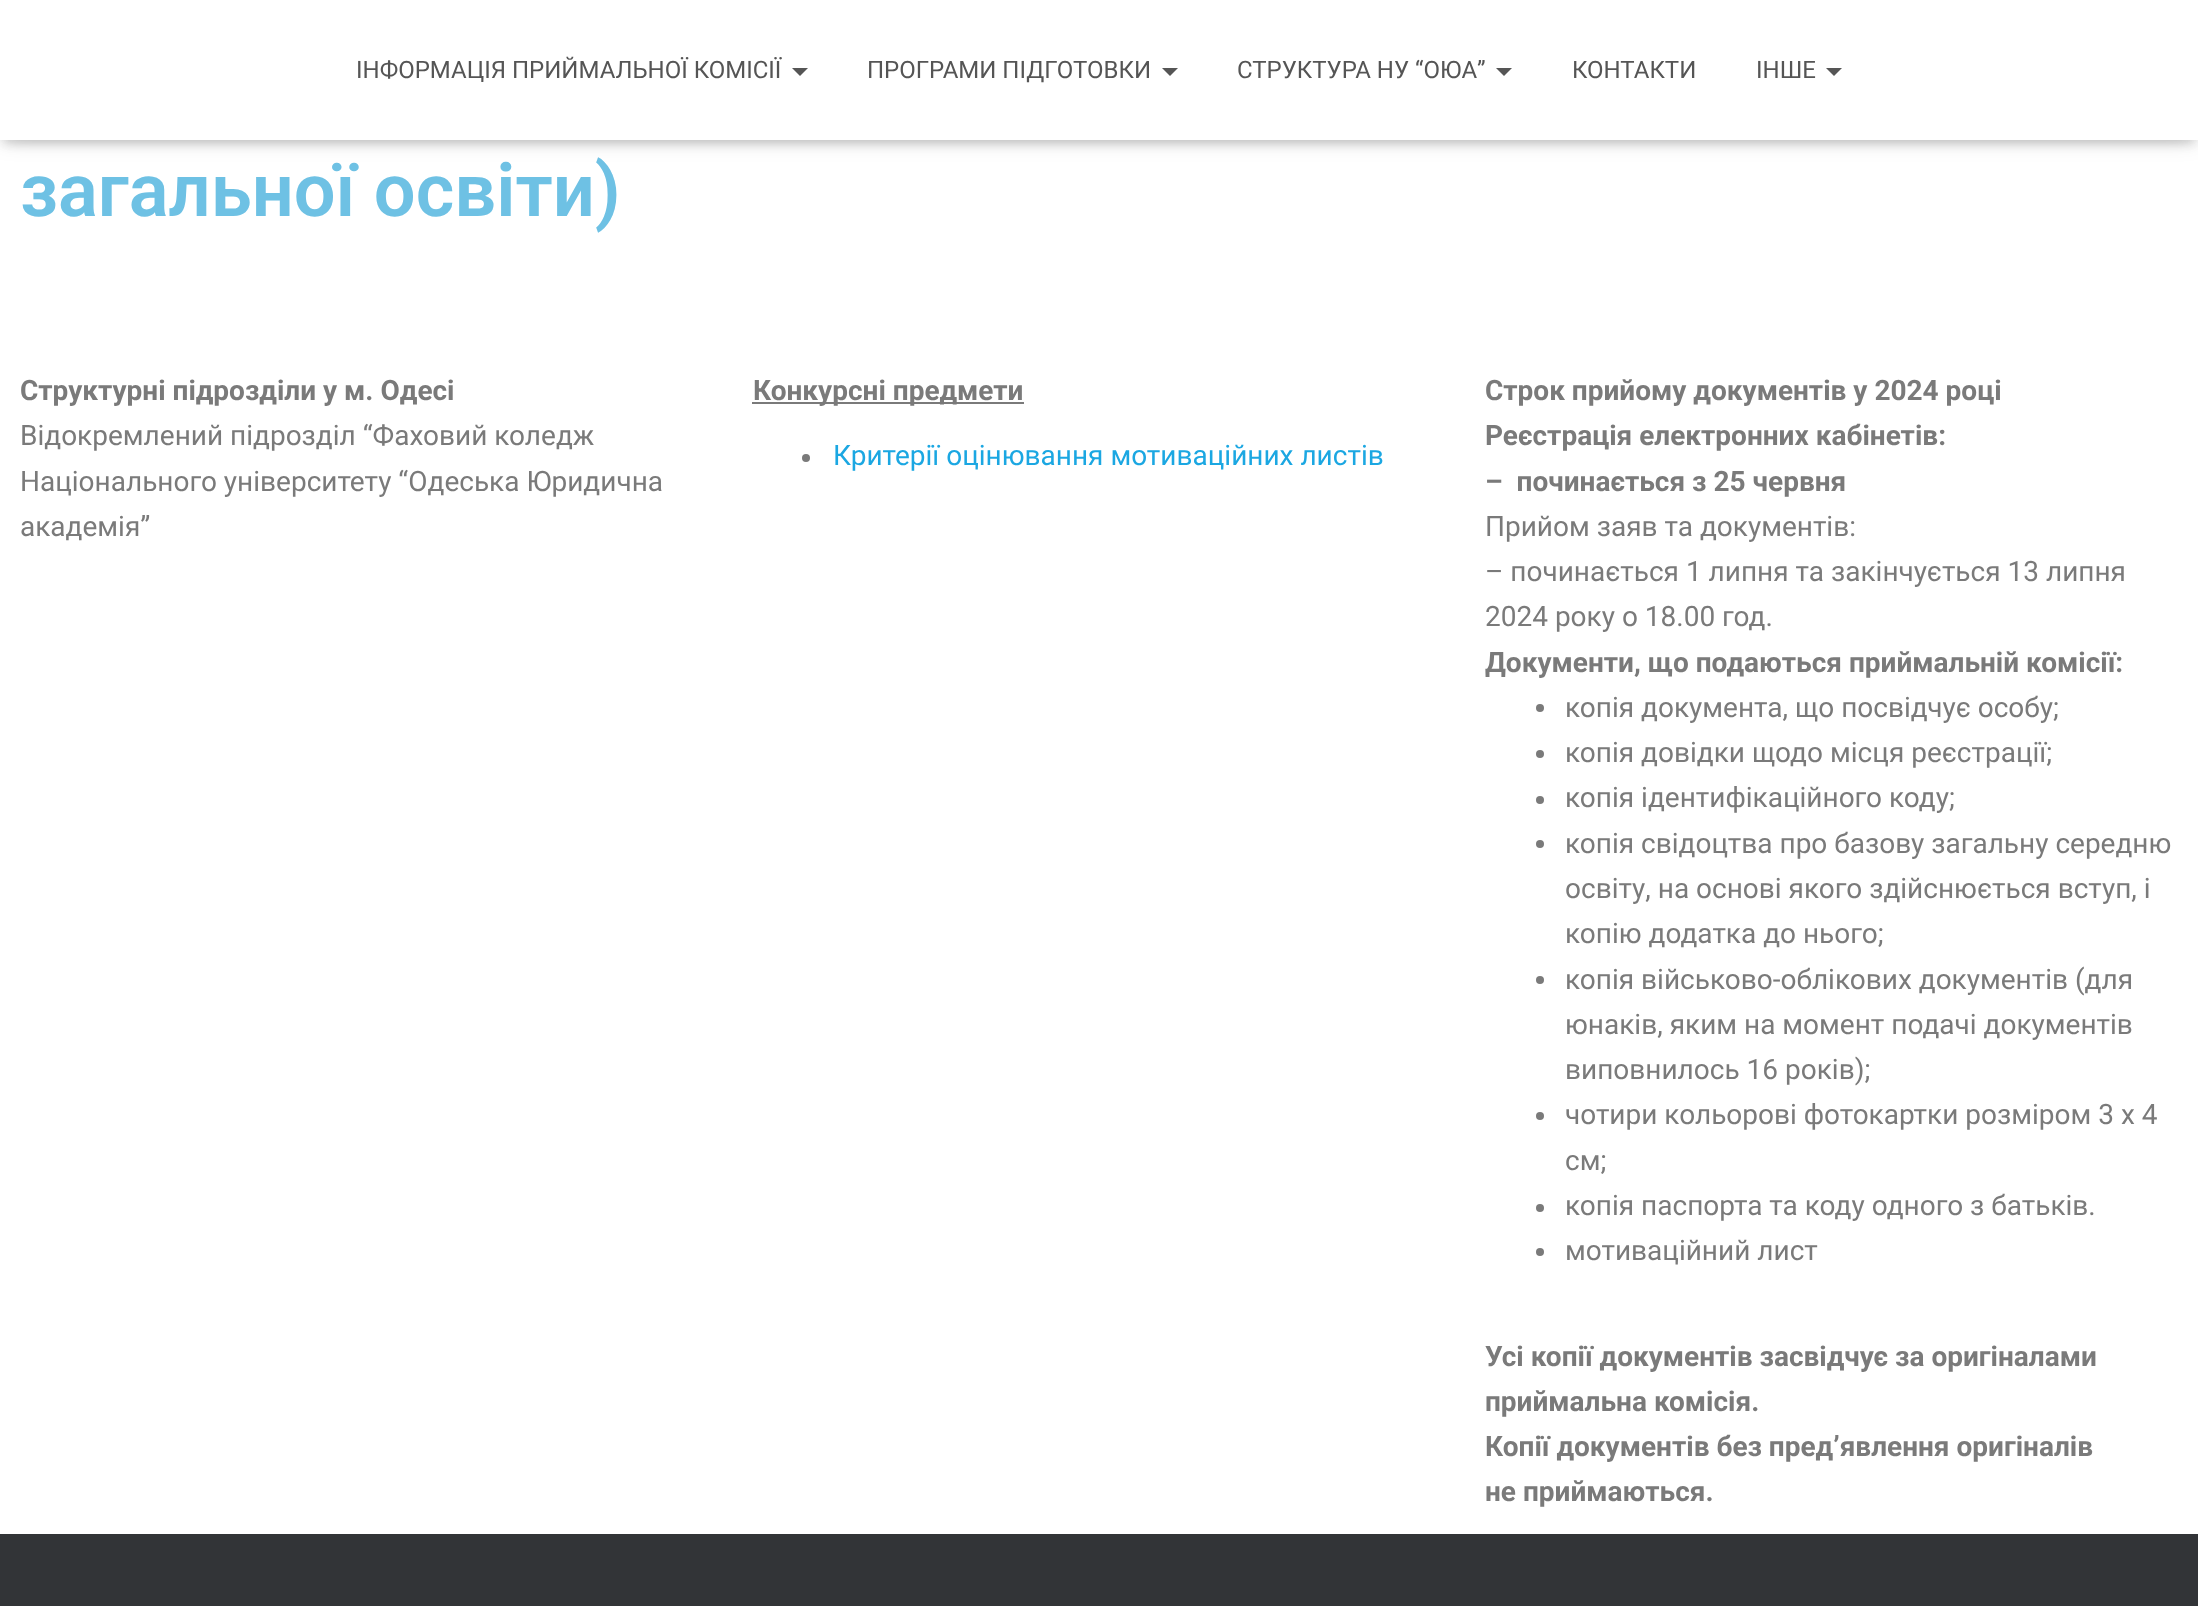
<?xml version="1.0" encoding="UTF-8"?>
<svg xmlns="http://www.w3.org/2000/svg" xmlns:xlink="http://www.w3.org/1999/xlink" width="2198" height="1606">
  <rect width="100%" height="100%" fill="#ffffff" />
  <rect x="4" y="12" width="2190" height="132" fill="#000000" fill-opacity="0.1" filter="blur(5px)" />
  <rect y="2" width="2198" height="140" fill="#000000" fill-opacity="0.12" filter="blur(10px)" />
  <rect x="12" y="14" width="2174" height="116" fill="#000000" fill-opacity="0.42" filter="blur(10px)" />
  <rect width="2198" height="140" fill="#ffffff" />
  <path d="M 792 68 h 16 l -8 8 z" fill="#555555" />
  <path d="M 1162 68 h 16 l -8 8 z" fill="#555555" />
  <path d="M 1496 68 h 16 l -8 8 z" fill="#555555" />
  <path d="M 1826 68 h 16 l -8 8 z" fill="#555555" />
  <rect x="752" y="402" width="272" height="2" fill="#7a7a7a" />
  <circle cx="806" cy="458" r="4" fill="#7a7a7a" />
  <circle cx="1540" cy="708" r="4" fill="#7a7a7a" />
  <circle cx="1540" cy="754" r="4" fill="#7a7a7a" />
  <circle cx="1540" cy="800" r="4" fill="#7a7a7a" />
  <circle cx="1540" cy="844" r="4" fill="#7a7a7a" />
  <circle cx="1540" cy="980" r="4" fill="#7a7a7a" />
  <circle cx="1540" cy="1116" r="4" fill="#7a7a7a" />
  <circle cx="1540" cy="1208" r="4" fill="#7a7a7a" />
  <circle cx="1540" cy="1252" r="4" fill="#7a7a7a" />
  <rect y="1534" width="2198" height="72" fill="#323437" />
  <text x="356" y="78" style="font-family: Roboto; font-size: 24px; fill: #555555">ІНФОРМАЦІЯ ПРИЙМАЛЬНОЇ КОМІСІЇ</text>
  <text x="867" y="78" style="font-family: Roboto; font-size: 24px; fill: #555555">ПРОГРАМИ ПІДГОТОВКИ</text>
  <text x="1237" y="78" style="font-family: Roboto; font-size: 24px; fill: #555555">СТРУКТУРА НУ “ОЮА”</text>
  <text x="1572" y="78" style="font-family: Roboto; font-size: 24px; fill: #555555">КОНТАКТИ</text>
  <text x="1756" y="78" style="font-family: Roboto; font-size: 24px; fill: #555555">ІНШЕ</text>
  <text x="20" y="216" style="font-family: Roboto; font-size: 74px; font-weight: 600; fill: #6ec1e4">загальної освіти)</text>
  <text x="20" y="400" style="font-family: Roboto; font-size: 28px; font-weight: bold; fill: #7a7a7a">Структурні підрозділи у м. Одесі</text>
  <text x="20" y="445" style="font-family: Roboto; font-size: 28px; fill: #7a7a7a">Відокремлений підрозділ “Фаховий коледж</text>
  <text x="20" y="491" style="font-family: Roboto; font-size: 28px; fill: #7a7a7a">Національного університету “Одеська Юридична</text>
  <text x="20" y="536" style="font-family: Roboto; font-size: 28px; fill: #7a7a7a">академія”</text>
  <text x="753" y="400" style="font-family: Roboto; font-size: 28px; font-weight: bold; fill: #7a7a7a">Конкурсні предмети</text>
  <text x="833" y="465" style="font-family: Roboto; font-size: 28px; fill: #1ba7e2">Критерії оцінювання мотиваційних листів</text>
  <text x="1485" y="400" style="font-family: Roboto; font-size: 28px; font-weight: bold; fill: #7a7a7a">Строк прийому документів у 2024 році</text>
  <text x="1485" y="445" style="font-family: Roboto; font-size: 28px; font-weight: bold; fill: #7a7a7a">Реєстрація електронних кабінетів:</text>
  <text x="1485" y="491" style="font-family: Roboto; font-size: 28px; font-weight: bold; fill: #7a7a7a" xml:space="preserve">–  починається з 25 червня</text>
  <text x="1485" y="536" style="font-family: Roboto; font-size: 28px; fill: #7a7a7a">Прийом заяв та документів:</text>
  <text x="1485" y="581" style="font-family: Roboto; font-size: 28px; fill: #7a7a7a">– починається 1 липня та закінчується 13 липня</text>
  <text x="1485" y="626" style="font-family: Roboto; font-size: 28px; fill: #7a7a7a">2024 року о 18.00 год.</text>
  <text x="1485" y="672" style="font-family: Roboto; font-size: 28px; font-weight: bold; fill: #7a7a7a">Документи, що подаються приймальній комісії:</text>
  <text x="1565" y="717" style="font-family: Roboto; font-size: 28px; fill: #7a7a7a">копія документа, що посвідчує особу;</text>
  <text x="1565" y="762" style="font-family: Roboto; font-size: 28px; fill: #7a7a7a">копія довідки щодо місця реєстрації;</text>
  <text x="1565" y="807" style="font-family: Roboto; font-size: 28px; fill: #7a7a7a">копія ідентифікаційного коду;</text>
  <text x="1565" y="853" style="font-family: Roboto; font-size: 28px; fill: #7a7a7a">копія свідоцтва про базову загальну середню</text>
  <text x="1565" y="898" style="font-family: Roboto; font-size: 28px; fill: #7a7a7a">освіту, на основі якого здійснюється вступ, і</text>
  <text x="1565" y="943" style="font-family: Roboto; font-size: 28px; fill: #7a7a7a">копію додатка до нього;</text>
  <text x="1565" y="989" style="font-family: Roboto; font-size: 28px; fill: #7a7a7a">копія військово-облікових документів (для</text>
  <text x="1565" y="1034" style="font-family: Roboto; font-size: 28px; fill: #7a7a7a">юнаків, яким на момент подачі документів</text>
  <text x="1565" y="1079" style="font-family: Roboto; font-size: 28px; fill: #7a7a7a">виповнилось 16 років);</text>
  <text x="1565" y="1124" style="font-family: Roboto; font-size: 28px; fill: #7a7a7a">чотири кольорові фотокартки розміром 3 х 4</text>
  <text x="1565" y="1170" style="font-family: Roboto; font-size: 28px; fill: #7a7a7a">см;</text>
  <text x="1565" y="1215" style="font-family: Roboto; font-size: 28px; fill: #7a7a7a">копія паспорта та коду одного з батьків.</text>
  <text x="1565" y="1260" style="font-family: Roboto; font-size: 28px; fill: #7a7a7a">мотиваційний лист</text>
  <text x="1485" y="1366" style="font-family: Roboto; font-size: 28px; font-weight: bold; fill: #7a7a7a">Усі копії документів засвідчує за оригіналами</text>
  <text x="1485" y="1411" style="font-family: Roboto; font-size: 28px; font-weight: bold; fill: #7a7a7a">приймальна комісія.</text>
  <text x="1485" y="1456" style="font-family: Roboto; font-size: 28px; font-weight: bold; fill: #7a7a7a">Копії документів без пред’явлення оригіналів</text>
  <text x="1485" y="1501" style="font-family: Roboto; font-size: 28px; font-weight: bold; fill: #7a7a7a">не приймаються.</text>
</svg>
